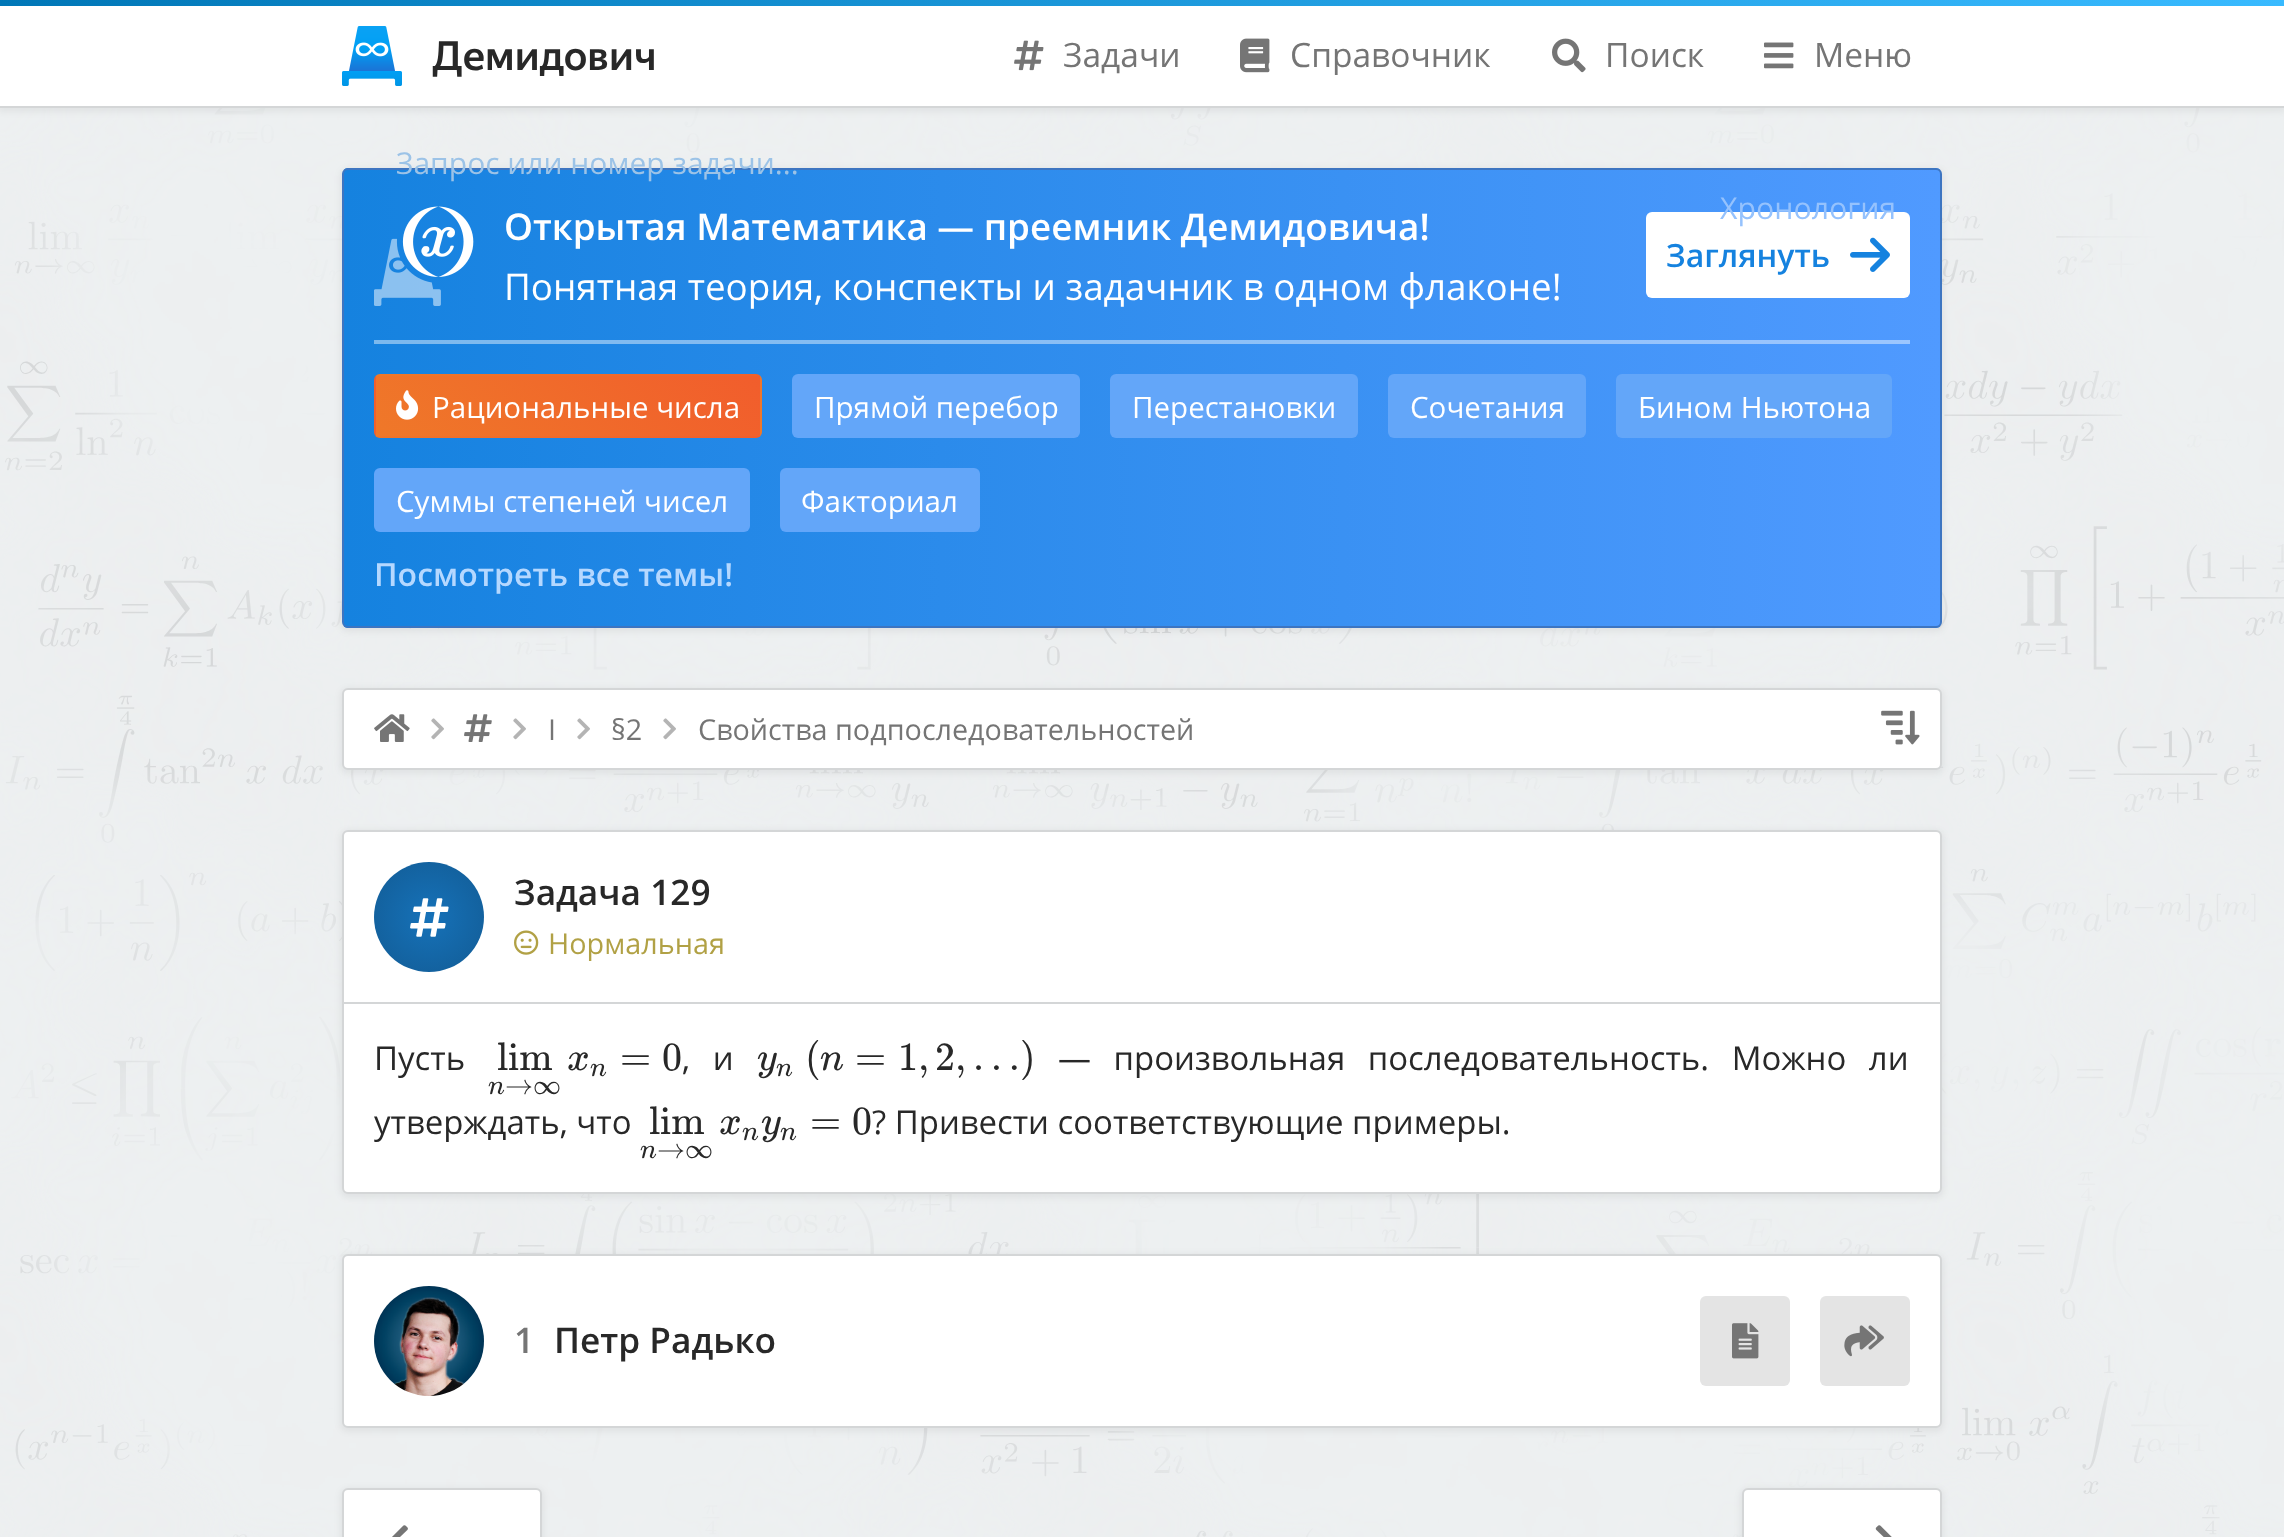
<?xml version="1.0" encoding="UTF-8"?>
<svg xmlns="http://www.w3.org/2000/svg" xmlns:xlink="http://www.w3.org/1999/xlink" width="2284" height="1537">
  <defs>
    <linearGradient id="g1" gradientUnits="userSpaceOnUse" x1="0" y1="3" x2="2284" y2="3"><stop offset="0" stop-color="#0077b7" /><stop offset="1" stop-color="#38baff" /></linearGradient>
    <clipPath id="clip1"><rect x="342" y="168" width="1600" height="460" rx="6" /></clipPath>
    <linearGradient id="g2" gradientUnits="userSpaceOnUse" x1="344" y1="398" x2="1940" y2="398"><stop offset="0" stop-color="#1582df" /><stop offset="1" stop-color="#509aff" /></linearGradient>
    <clipPath id="clip2"><rect x="374" y="374" width="388" height="64" rx="6" /></clipPath>
    <linearGradient id="g3" gradientUnits="userSpaceOnUse" x1="73" y1="457" x2="295" y2="235"><stop offset="0" stop-color="#ef7829" /><stop offset="1" stop-color="#f15d2c" /></linearGradient>
    <linearGradient id="g4" gradientUnits="userSpaceOnUse" x1="457" y1="457" x2="679" y2="235"><stop offset="0" stop-color="#ef7829" /><stop offset="1" stop-color="#f15d2c" /></linearGradient>
    <linearGradient id="g5" gradientUnits="userSpaceOnUse" x1="841" y1="457" x2="1063" y2="235"><stop offset="0" stop-color="#ef7829" /><stop offset="1" stop-color="#f15d2c" /></linearGradient>
    <linearGradient id="g6" gradientUnits="userSpaceOnUse" x1="73" y1="517" x2="295" y2="295"><stop offset="0" stop-color="#ef7829" /><stop offset="1" stop-color="#f15d2c" /></linearGradient>
    <linearGradient id="g7" gradientUnits="userSpaceOnUse" x1="457" y1="517" x2="679" y2="295"><stop offset="0" stop-color="#ef7829" /><stop offset="1" stop-color="#f15d2c" /></linearGradient>
    <linearGradient id="g8" gradientUnits="userSpaceOnUse" x1="841" y1="517" x2="1063" y2="295"><stop offset="0" stop-color="#ef7829" /><stop offset="1" stop-color="#f15d2c" /></linearGradient>
    <linearGradient id="g9" gradientUnits="userSpaceOnUse" x1="73" y1="577" x2="295" y2="355"><stop offset="0" stop-color="#ef7829" /><stop offset="1" stop-color="#f15d2c" /></linearGradient>
    <linearGradient id="g10" gradientUnits="userSpaceOnUse" x1="457" y1="577" x2="679" y2="355"><stop offset="0" stop-color="#ef7829" /><stop offset="1" stop-color="#f15d2c" /></linearGradient>
    <linearGradient id="g11" gradientUnits="userSpaceOnUse" x1="841" y1="577" x2="1063" y2="355"><stop offset="0" stop-color="#ef7829" /><stop offset="1" stop-color="#f15d2c" /></linearGradient>
    <radialGradient id="g12" gradientUnits="userSpaceOnUse" cx="429" cy="917" r="78"><stop offset="0" stop-color="#1672b9" /><stop offset="1" stop-color="#125b94" /></radialGradient>
  </defs>
  <rect width="100%" height="100%" fill="#edeff0" />
  <image x="5" y="108" width="2279" height="1429" xlink:href="image21.png" />
  <image x="0" y="108" width="2284" height="1429" xlink:href="image20.png" />
  <rect x="-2" width="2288" height="112" fill="#000000" fill-opacity="0.05" filter="blur(3px)" />
  <rect y="6" width="2284" height="100" fill="#ffffff" />
  <rect y="106" width="2284" height="2" fill="#d4d6d7" />
  <rect width="2284" height="6" fill="url(#g1)" />
  <image x="342" y="26" width="60" height="60" xlink:href="image1.png" />
  <image x="1014" y="40" width="30" height="31" xlink:href="image2.png" />
  <image x="1240" y="38" width="30" height="35" xlink:href="image3.png" />
  <image x="1552" y="38" width="34" height="35" xlink:href="image4.png" />
  <image x="1764" y="42" width="30" height="27" xlink:href="image5.png" />
  <rect x="340" y="168" width="1604" height="464" rx="8" fill="#000000" fill-opacity="0.05" filter="blur(3px)" />
  <g clip-path="url(#clip1)">
    <rect x="344" y="168" width="1596" height="460" fill="url(#g2)" />
  </g>
  <rect x="343" y="169" width="1598" height="458" rx="5" fill="none" stroke="#3d75c1" stroke-width="2" />
  <rect x="374" y="340" width="1536" height="4" fill="#ffffff" fill-opacity="0.44" />
  <image x="374" y="206" width="100" height="100" xlink:href="image6.png" />
  <rect x="1646" y="212" width="264" height="86" rx="6" fill="#ffffff" />
  <image x="1850" y="237" width="40" height="35" xlink:href="image7.png" />
  <g clip-path="url(#clip2)">
    <rect x="374" y="375" width="2" height="1" fill="url(#g3)" />
    <rect x="376" y="374" width="384" height="2" fill="url(#g4)" />
    <rect x="760" y="375" width="2" height="1" fill="url(#g5)" />
    <rect x="374" y="376" width="2" height="60" fill="url(#g6)" />
  </g>
  <rect x="376" y="376" width="384" height="60" fill="url(#g7)" />
  <g clip-path="url(#clip2)">
    <rect x="760" y="376" width="2" height="60" fill="url(#g8)" />
    <rect x="374" y="436" width="2" height="1" fill="url(#g9)" />
    <rect x="376" y="436" width="384" height="2" fill="url(#g10)" />
    <rect x="760" y="436" width="2" height="1" fill="url(#g11)" />
  </g>
  <image x="396" y="390" width="23" height="30" xlink:href="image8.png" />
  <rect x="792" y="374" width="288" height="64" rx="6" fill="#63a6f9" />
  <rect x="1110" y="374" width="248" height="64" rx="6" fill="#63a6f9" />
  <rect x="1388" y="374" width="198" height="64" rx="6" fill="#63a6f9" />
  <rect x="1616" y="374" width="276" height="64" rx="6" fill="#63a6f9" />
  <rect x="374" y="468" width="376" height="64" rx="6" fill="#63a6f9" />
  <rect x="780" y="468" width="200" height="64" rx="6" fill="#63a6f9" />
  <rect x="340" y="688" width="1604" height="86" rx="8" fill="#000000" fill-opacity="0.05" filter="blur(3px)" />
  <rect x="343" y="689" width="1598" height="80" rx="5" fill="#ffffff" stroke="#d4d6d7" stroke-width="2" />
  <image x="374" y="714" width="36" height="28" xlink:href="image9.png" />
  <image x="431" y="718" width="13" height="22" xlink:href="image10.png" />
  <image x="464" y="714" width="28" height="28" xlink:href="image11.png" />
  <image x="513" y="718" width="13" height="22" xlink:href="image10.png" />
  <image x="577" y="718" width="13" height="22" xlink:href="image10.png" />
  <image x="663" y="718" width="13" height="22" xlink:href="image10.png" />
  <image x="1881" y="710" width="39" height="35" xlink:href="image12.png" />
  <rect x="340" y="830" width="1604" height="368" rx="8" fill="#000000" fill-opacity="0.05" filter="blur(3px)" />
  <rect x="343" y="831" width="1598" height="362" rx="5" fill="#ffffff" stroke="#d4d6d7" stroke-width="2" />
  <rect x="344" y="1002" width="1596" height="2" fill="#d4d6d7" />
  <circle cx="429" cy="917" r="55" fill="url(#g12)" />
  <image x="410" y="898" width="39" height="39" xlink:href="image13.png" />
  <image x="514" y="930" width="25" height="25" xlink:href="image14.png" />
  <rect x="340" y="1254" width="1604" height="178" rx="8" fill="#000000" fill-opacity="0.05" filter="blur(3px)" />
  <rect x="343" y="1255" width="1598" height="172" rx="5" fill="#ffffff" stroke="#d4d6d7" stroke-width="2" />
  <image x="374" y="1286" width="110" height="110" xlink:href="image15.png" />
  <rect x="1700" y="1296" width="90" height="90" rx="6" fill="#e4e4e4" />
  <image x="1732" y="1323" width="27" height="36" xlink:href="image16.png" />
  <rect x="1820" y="1296" width="90" height="90" rx="6" fill="#e4e4e4" />
  <image x="1844" y="1325" width="40" height="32" xlink:href="image17.png" />
  <rect x="340" y="1488" width="204" height="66" rx="8" fill="#000000" fill-opacity="0.05" filter="blur(3px)" />
  <rect x="343" y="1489" width="198" height="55" rx="5" fill="#ffffff" stroke="#d4d6d7" stroke-width="2" />
  <image x="392" y="1525" width="16" height="12" xlink:href="image18.png" />
  <rect x="1740" y="1488" width="204" height="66" rx="8" fill="#000000" fill-opacity="0.05" filter="blur(3px)" />
  <rect x="1743" y="1489" width="198" height="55" rx="5" fill="#ffffff" stroke="#d4d6d7" stroke-width="2" />
  <image x="1875" y="1525" width="17" height="12" xlink:href="image19.png" />
  <text x="432" y="70" style="font-family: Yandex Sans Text; font-size: 40px; font-weight: 500; fill: #282828">Демидович</text>
  <text x="1063" y="67" style="font-family: Open Sans; font-size: 33.5px; fill: #757575">Задачи</text>
  <text x="1290" y="67" style="font-family: Open Sans; font-size: 33.5px; fill: #757575">Справочник</text>
  <text x="1605" y="67" style="font-family: Open Sans; font-size: 33.5px; fill: #757575">Поиск</text>
  <text x="1814" y="67" style="font-family: Open Sans; font-size: 33.5px; fill: #757575">Меню</text>
  <text x="1720" y="219" style="font-family: Open Sans; font-size: 30.25px; fill: #95c2fd">Хронология</text>
  <text x="396" y="174" style="font-family: Open Sans; font-size: 30px; fill: #9cc3e7">Запрос или номер задачи...</text>
  <text x="504" y="240" style="font-family: Open Sans; font-size: 36.8px; font-weight: 600; fill: #ffffff">Открытая Математика — преемник Демидовича!</text>
  <text x="504" y="300" style="font-family: Open Sans; font-size: 36.8px; fill: #ffffff">Понятная теория, конспекты и задачник в одном флаконе!</text>
  <text x="1666" y="267" style="font-family: Open Sans; font-size: 32px; font-weight: 600; fill: #1582df">Заглянуть</text>
  <text x="432" y="418" style="font-family: Open Sans; font-size: 29.5px; fill: #ffffff">Рациональные числа</text>
  <text x="814" y="418" style="font-family: Open Sans; font-size: 29.5px; fill: #ffffff">Прямой перебор</text>
  <text x="1132" y="418" style="font-family: Open Sans; font-size: 29.5px; fill: #ffffff">Перестановки</text>
  <text x="1410" y="418" style="font-family: Open Sans; font-size: 29.5px; fill: #ffffff">Сочетания</text>
  <text x="1638" y="418" style="font-family: Open Sans; font-size: 29.5px; fill: #ffffff">Бином Ньютона</text>
  <text x="396" y="512" style="font-family: Open Sans; font-size: 29.5px; fill: #ffffff">Суммы степеней чисел</text>
  <text x="801" y="512" style="font-family: Open Sans; font-size: 29.5px; fill: #ffffff">Факториал</text>
  <text x="374" y="586" style="font-family: Open Sans; font-size: 32px; font-weight: 600; fill: #b5d8ff">Посмотреть все темы!</text>
  <text x="548" y="740" style="font-family: Open Sans; font-size: 28.75px; fill: #757575">I</text>
  <text x="611" y="740" style="font-family: Open Sans; font-size: 28.75px; fill: #757575">§2</text>
  <text x="698" y="740" style="font-family: Open Sans; font-size: 28.75px; fill: #757575">Свойства подпоследовательностей</text>
  <text x="514" y="905" style="font-family: Open Sans; font-size: 35.25px; font-weight: 600; fill: #282828">Задача 129</text>
  <text x="548" y="954" style="font-family: Open Sans; font-size: 28.75px; fill: #b1a145">Нормальная</text>
  <text x="374" y="1070" style="font-family: Open Sans; font-size: 32.95px; fill: #282828">Пусть</text>
  <text x="497" y="1070" style="font-family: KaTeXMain; font-size: 40px; fill: #282828">lim</text>
  <text x="488" y="1094" style="font-family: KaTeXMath; font-size: 28px; font-style: italic; fill: #282828">n</text>
  <text x="505" y="1094" style="font-family: KaTeXMain; font-size: 28px; fill: #282828">→∞</text>
  <text x="567" y="1070" style="font-family: KaTeXMath; font-size: 40px; font-style: italic; fill: #282828">x</text>
  <text x="590" y="1076" style="font-family: KaTeXMath; font-size: 28px; font-style: italic; fill: #282828">n</text>
  <text x="620" y="1070" style="font-family: KaTeXMain; font-size: 40px; fill: #282828">=</text>
  <text x="662" y="1070" style="font-family: KaTeXMain; font-size: 40px; fill: #282828">0</text>
  <text x="682" y="1070" word-spacing="14" style="font-family: Open Sans; font-size: 32.95px; fill: #282828">, и</text>
  <text x="757" y="1070" style="font-family: KaTeXMath; font-size: 40px; font-style: italic; fill: #282828">y</text>
  <text x="776" y="1076" style="font-family: KaTeXMath; font-size: 28px; font-style: italic; fill: #282828">n</text>
  <text x="805" y="1070" style="font-family: KaTeXMain; font-size: 40px; fill: #282828">(</text>
  <text x="820" y="1070" style="font-family: KaTeXMath; font-size: 40px; font-style: italic; fill: #282828">n</text>
  <text x="855" y="1070" style="font-family: KaTeXMain; font-size: 40px; fill: #282828">=</text>
  <text x="898" y="1070" style="font-family: KaTeXMain; font-size: 40px; fill: #282828">1,</text>
  <text x="935" y="1070" style="font-family: KaTeXMain; font-size: 40px; fill: #282828">2,</text>
  <text x="973" y="1070" style="font-family: KaTeXMain; font-size: 40px; fill: #282828">…)</text>
  <text x="1058" y="1070" word-spacing="14" style="font-family: Open Sans; font-size: 32.95px; fill: #282828">— произвольная последовательность. Можно ли</text>
  <text x="374" y="1134" style="font-family: Open Sans; font-size: 32.95px; fill: #282828">утверждать, что</text>
  <text x="649" y="1134" style="font-family: KaTeXMain; font-size: 40px; fill: #282828">lim</text>
  <text x="640" y="1158" style="font-family: KaTeXMath; font-size: 28px; font-style: italic; fill: #282828">n</text>
  <text x="657" y="1158" style="font-family: KaTeXMain; font-size: 28px; fill: #282828">→∞</text>
  <text x="719" y="1134" style="font-family: KaTeXMath; font-size: 40px; font-style: italic; fill: #282828">x</text>
  <text x="742" y="1140" style="font-family: KaTeXMath; font-size: 28px; font-style: italic; fill: #282828">n</text>
  <text x="761" y="1134" style="font-family: KaTeXMath; font-size: 40px; font-style: italic; fill: #282828">y</text>
  <text x="780" y="1140" style="font-family: KaTeXMath; font-size: 28px; font-style: italic; fill: #282828">n</text>
  <text x="810" y="1134" style="font-family: KaTeXMain; font-size: 40px; fill: #282828">=</text>
  <text x="852" y="1134" style="font-family: KaTeXMain; font-size: 40px; fill: #282828">0</text>
  <text x="872" y="1134" style="font-family: Open Sans; font-size: 32.95px; fill: #282828">? Привести соответствующие примеры.</text>
  <text x="514" y="1353" style="font-family: Open Sans; font-size: 35.25px; font-weight: 600; fill: #757575">1</text>
  <text x="554" y="1353" style="font-family: Open Sans; font-size: 35.25px; font-weight: 600; fill: #282828">Петр Радько</text>
</svg>
